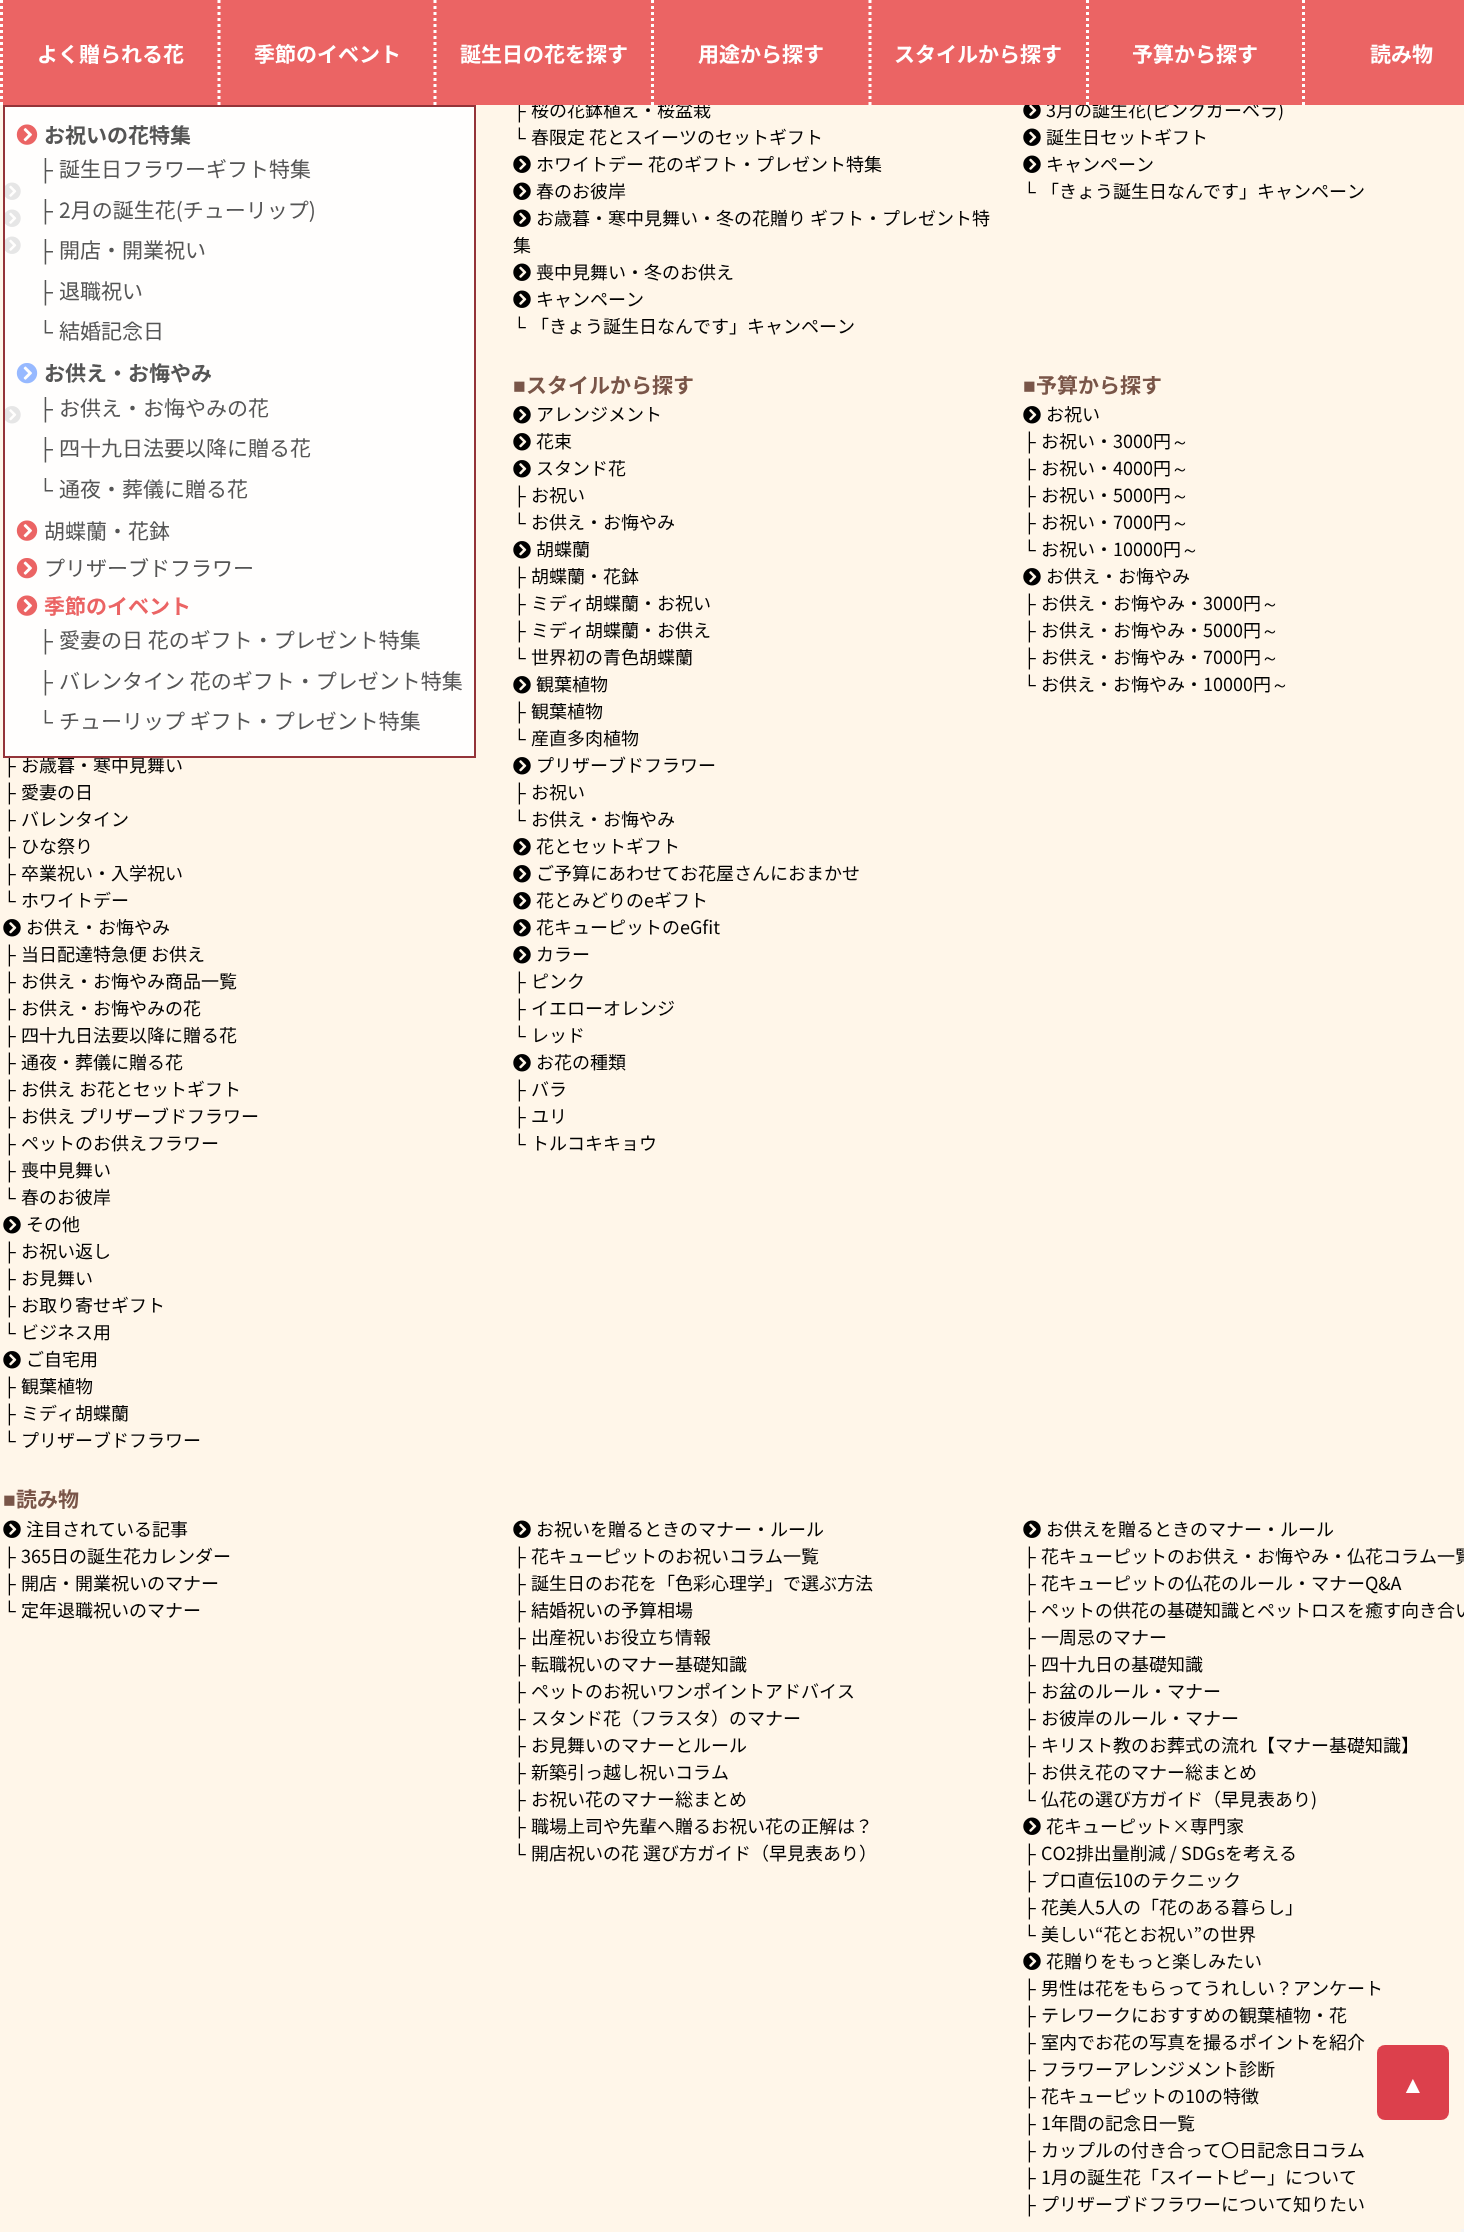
<?xml version="1.0" encoding="UTF-8"?>
<svg xmlns="http://www.w3.org/2000/svg" xmlns:xlink="http://www.w3.org/1999/xlink" width="1464" height="2232">
  <style>*{font-kerning:none!important;font-variant-ligatures:none!important}</style>
  <rect width="100%" height="100%" fill="#fff6e9" />
  <image x="513" y="155" width="18" height="18" xlink:href="image6.png" />
  <image x="513" y="182" width="18" height="18" xlink:href="image6.png" />
  <image x="513" y="209" width="18" height="18" xlink:href="image6.png" />
  <image x="513" y="263" width="18" height="18" xlink:href="image6.png" />
  <image x="513" y="290" width="18" height="18" xlink:href="image6.png" />
  <image x="1023" y="105" width="18" height="14" xlink:href="image7.png" />
  <image x="1023" y="128" width="18" height="18" xlink:href="image6.png" />
  <image x="1023" y="155" width="18" height="18" xlink:href="image6.png" />
  <image x="5" y="182" width="16" height="18" xlink:href="image8.png" />
  <image x="5" y="209" width="16" height="18" xlink:href="image8.png" />
  <image x="5" y="236" width="16" height="18" xlink:href="image8.png" />
  <image x="513" y="406" width="18" height="18" xlink:href="image9.png" />
  <image x="513" y="433" width="18" height="18" xlink:href="image9.png" />
  <image x="513" y="460" width="18" height="18" xlink:href="image9.png" />
  <image x="513" y="541" width="18" height="18" xlink:href="image9.png" />
  <image x="513" y="676" width="18" height="18" xlink:href="image9.png" />
  <image x="513" y="757" width="18" height="18" xlink:href="image9.png" />
  <image x="513" y="838" width="18" height="18" xlink:href="image9.png" />
  <image x="513" y="865" width="18" height="18" xlink:href="image9.png" />
  <image x="513" y="892" width="18" height="18" xlink:href="image9.png" />
  <image x="513" y="919" width="18" height="18" xlink:href="image9.png" />
  <image x="513" y="946" width="18" height="18" xlink:href="image9.png" />
  <image x="513" y="1054" width="18" height="18" xlink:href="image9.png" />
  <image x="1023" y="406" width="18" height="18" xlink:href="image9.png" />
  <image x="1023" y="568" width="18" height="18" xlink:href="image9.png" />
  <image x="5" y="406" width="16" height="18" xlink:href="image10.png" />
  <image x="3" y="919" width="18" height="18" xlink:href="image9.png" />
  <image x="3" y="1216" width="18" height="18" xlink:href="image9.png" />
  <image x="3" y="1351" width="18" height="18" xlink:href="image9.png" />
  <image x="3" y="1520" width="18" height="18" xlink:href="image6.png" />
  <image x="513" y="1520" width="18" height="18" xlink:href="image6.png" />
  <image x="1023" y="1520" width="18" height="18" xlink:href="image6.png" />
  <image x="1023" y="1817" width="18" height="18" xlink:href="image6.png" />
  <image x="1023" y="1952" width="18" height="18" xlink:href="image6.png" />
  <rect x="1377" y="2045" width="72" height="75" rx="8" fill="#dc404c" />
  <rect x="1461" y="2229" width="3" height="3" fill="#f5f5f5" />
  <text x="513" y="117" style="font-family: Liberation Sans; font-size: 18px; fill: #000000">├</text>
  <text x="531" y="117" style="font-family: Noto Sans JP; font-size: 18px; font-weight: 100; fill: #000000">桜の花鉢植え・桜盆栽</text>
  <text x="513" y="144" style="font-family: Liberation Sans; font-size: 18px; fill: #000000">└</text>
  <text x="531" y="144" style="font-family: Noto Sans JP; font-size: 18px; font-weight: 100; fill: #000000">春限定 花とスイーツのセットギフト</text>
  <text x="536" y="171" style="font-family: Noto Sans JP; font-size: 18px; font-weight: 100; fill: #000000">ホワイトデー 花のギフト・プレゼント特集</text>
  <text x="536" y="198" style="font-family: Noto Sans JP; font-size: 18px; font-weight: 100; fill: #000000">春のお彼岸</text>
  <text x="536" y="225" style="font-family: Noto Sans JP; font-size: 18px; font-weight: 100; fill: #000000">お歳暮・寒中見舞い・冬の花贈り ギフト・プレゼント特</text>
  <text x="513" y="252" style="font-family: Noto Sans JP; font-size: 18px; font-weight: 100; fill: #000000">集</text>
  <text x="536" y="279" style="font-family: Noto Sans JP; font-size: 18px; font-weight: 100; fill: #000000">喪中見舞い・冬のお供え</text>
  <text x="536" y="306" style="font-family: Noto Sans JP; font-size: 18px; font-weight: 100; fill: #000000">キャンペーン</text>
  <text x="513" y="333" style="font-family: Liberation Sans; font-size: 18px; fill: #000000">└</text>
  <text x="531" y="333" style="font-family: Noto Sans JP; font-size: 18px; font-weight: 100; fill: #000000">「きょう誕生日なんです」キャンペーン</text>
  <text x="1046" y="117" style="font-family: Noto Sans JP; font-size: 18px; font-weight: 100; fill: #000000">3月の誕生花(ピンクガーベラ)</text>
  <rect width="1464" height="105" fill="#eb6464" />
  <text x="1370" y="62" style="font-family: 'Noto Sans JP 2'; font-size: 21px; font-weight: 100; fill: #ffffff">読み物</text>
  <path d="M 1303.5 0 v 105" fill="none" stroke="#ffffff" stroke-width="3" stroke-dasharray="3 3" />
  <text x="1132" y="62" style="font-family: 'Noto Sans JP 2'; font-size: 21px; font-weight: 100; fill: #ffffff">予算から探す</text>
  <path d="M 1087.5 0 v 105" fill="none" stroke="#ffffff" stroke-width="3" stroke-dasharray="3 3" />
  <text x="894" y="62" style="font-family: 'Noto Sans JP 2'; font-size: 21px; font-weight: 100; fill: #ffffff">スタイルから探す</text>
  <path d="M 870 0 v 105" fill="none" stroke="#ffffff" stroke-width="3" stroke-dasharray="3 3" />
  <text x="698" y="62" style="font-family: 'Noto Sans JP 2'; font-size: 21px; font-weight: 100; fill: #ffffff">用途から探す</text>
  <path d="M 652.5 0 v 105" fill="none" stroke="#ffffff" stroke-width="3" stroke-dasharray="3 3" />
  <text x="460" y="62" style="font-family: 'Noto Sans JP 2'; font-size: 21px; font-weight: 100; fill: #ffffff">誕生日の花を探す</text>
  <path d="M 435 0 v 105" fill="none" stroke="#ffffff" stroke-width="3" stroke-dasharray="3 3" />
  <text x="254" y="62" style="font-family: 'Noto Sans JP 2'; font-size: 21px; font-weight: 100; fill: #ffffff">季節のイベント</text>
  <path d="M 219 0 v 105" fill="none" stroke="#ffffff" stroke-width="3" stroke-dasharray="3 3" />
  <text x="37" y="62" style="font-family: 'Noto Sans JP 2'; font-size: 21px; font-weight: 100; fill: #ffffff">よく贈られる花</text>
  <path d="M 1.5 0 v 105" fill="none" stroke="#ffffff" stroke-width="3" stroke-dasharray="3 3" />
  <text x="1046" y="144" style="font-family: Noto Sans JP; font-size: 18px; font-weight: 100; fill: #000000">誕生日セットギフト</text>
  <text x="1046" y="171" style="font-family: Noto Sans JP; font-size: 18px; font-weight: 100; fill: #000000">キャンペーン</text>
  <text x="1023" y="198" style="font-family: Liberation Sans; font-size: 18px; fill: #000000">└</text>
  <text x="1041" y="198" style="font-family: Noto Sans JP; font-size: 18px; font-weight: 100; fill: #000000">「きょう誕生日なんです」キャンペーン</text>
  <text x="513" y="393" style="font-family: Liberation Sans; font-size: 21px; font-weight: bold; fill: #795548">■</text>
  <text x="526" y="393" style="font-family: 'Noto Sans JP 2'; font-size: 21px; font-weight: 100; fill: #795548">スタイルから探す</text>
  <text x="536" y="421" style="font-family: Noto Sans JP; font-size: 18px; font-weight: 100; fill: #000000">アレンジメント</text>
  <text x="536" y="448" style="font-family: Noto Sans JP; font-size: 18px; font-weight: 100; fill: #000000">花束</text>
  <text x="536" y="475" style="font-family: Noto Sans JP; font-size: 18px; font-weight: 100; fill: #000000">スタンド花</text>
  <text x="513" y="502" style="font-family: Liberation Sans; font-size: 18px; fill: #000000">├</text>
  <text x="531" y="502" style="font-family: Noto Sans JP; font-size: 18px; font-weight: 100; fill: #000000">お祝い</text>
  <text x="513" y="529" style="font-family: Liberation Sans; font-size: 18px; fill: #000000">└</text>
  <text x="531" y="529" style="font-family: Noto Sans JP; font-size: 18px; font-weight: 100; fill: #000000">お供え・お悔やみ</text>
  <text x="536" y="556" style="font-family: Noto Sans JP; font-size: 18px; font-weight: 100; fill: #000000">胡蝶蘭</text>
  <text x="513" y="583" style="font-family: Liberation Sans; font-size: 18px; fill: #000000">├</text>
  <text x="531" y="583" style="font-family: Noto Sans JP; font-size: 18px; font-weight: 100; fill: #000000">胡蝶蘭・花鉢</text>
  <text x="513" y="610" style="font-family: Liberation Sans; font-size: 18px; fill: #000000">├</text>
  <text x="531" y="610" style="font-family: Noto Sans JP; font-size: 18px; font-weight: 100; fill: #000000">ミディ胡蝶蘭・お祝い</text>
  <text x="513" y="637" style="font-family: Liberation Sans; font-size: 18px; fill: #000000">├</text>
  <text x="531" y="637" style="font-family: Noto Sans JP; font-size: 18px; font-weight: 100; fill: #000000">ミディ胡蝶蘭・お供え</text>
  <text x="513" y="664" style="font-family: Liberation Sans; font-size: 18px; fill: #000000">└</text>
  <text x="531" y="664" style="font-family: Noto Sans JP; font-size: 18px; font-weight: 100; fill: #000000">世界初の青色胡蝶蘭</text>
  <text x="536" y="691" style="font-family: Noto Sans JP; font-size: 18px; font-weight: 100; fill: #000000">観葉植物</text>
  <text x="513" y="718" style="font-family: Liberation Sans; font-size: 18px; fill: #000000">├</text>
  <text x="531" y="718" style="font-family: Noto Sans JP; font-size: 18px; font-weight: 100; fill: #000000">観葉植物</text>
  <text x="513" y="745" style="font-family: Liberation Sans; font-size: 18px; fill: #000000">└</text>
  <text x="531" y="745" style="font-family: Noto Sans JP; font-size: 18px; font-weight: 100; fill: #000000">産直多肉植物</text>
  <text x="536" y="772" style="font-family: Noto Sans JP; font-size: 18px; font-weight: 100; fill: #000000">プリザーブドフラワー</text>
  <text x="513" y="799" style="font-family: Liberation Sans; font-size: 18px; fill: #000000">├</text>
  <text x="531" y="799" style="font-family: Noto Sans JP; font-size: 18px; font-weight: 100; fill: #000000">お祝い</text>
  <text x="513" y="826" style="font-family: Liberation Sans; font-size: 18px; fill: #000000">└</text>
  <text x="531" y="826" style="font-family: Noto Sans JP; font-size: 18px; font-weight: 100; fill: #000000">お供え・お悔やみ</text>
  <text x="536" y="853" style="font-family: Noto Sans JP; font-size: 18px; font-weight: 100; fill: #000000">花とセットギフト</text>
  <text x="536" y="880" style="font-family: Noto Sans JP; font-size: 18px; font-weight: 100; fill: #000000">ご予算にあわせてお花屋さんにおまかせ</text>
  <text x="536" y="907" style="font-family: Noto Sans JP; font-size: 18px; font-weight: 100; fill: #000000">花とみどりのeギフト</text>
  <text x="536" y="934" style="font-family: Noto Sans JP; font-size: 18px; font-weight: 100; fill: #000000">花キューピットのeGfit</text>
  <text x="536" y="961" style="font-family: Noto Sans JP; font-size: 18px; font-weight: 100; fill: #000000">カラー</text>
  <text x="513" y="988" style="font-family: Liberation Sans; font-size: 18px; fill: #000000">├</text>
  <text x="531" y="988" style="font-family: Noto Sans JP; font-size: 18px; font-weight: 100; fill: #000000">ピンク</text>
  <text x="513" y="1015" style="font-family: Liberation Sans; font-size: 18px; fill: #000000">├</text>
  <text x="531" y="1015" style="font-family: Noto Sans JP; font-size: 18px; font-weight: 100; fill: #000000">イエローオレンジ</text>
  <text x="513" y="1042" style="font-family: Liberation Sans; font-size: 18px; fill: #000000">└</text>
  <text x="531" y="1042" style="font-family: Noto Sans JP; font-size: 18px; font-weight: 100; fill: #000000">レッド</text>
  <text x="536" y="1069" style="font-family: Noto Sans JP; font-size: 18px; font-weight: 100; fill: #000000">お花の種類</text>
  <text x="513" y="1096" style="font-family: Liberation Sans; font-size: 18px; fill: #000000">├</text>
  <text x="531" y="1096" style="font-family: Noto Sans JP; font-size: 18px; font-weight: 100; fill: #000000">バラ</text>
  <text x="513" y="1123" style="font-family: Liberation Sans; font-size: 18px; fill: #000000">├</text>
  <text x="531" y="1123" style="font-family: Noto Sans JP; font-size: 18px; font-weight: 100; fill: #000000">ユリ</text>
  <text x="513" y="1150" style="font-family: Liberation Sans; font-size: 18px; fill: #000000">└</text>
  <text x="531" y="1150" style="font-family: Noto Sans JP; font-size: 18px; font-weight: 100; fill: #000000">トルコキキョウ</text>
  <text x="1023" y="393" style="font-family: Liberation Sans; font-size: 21px; font-weight: bold; fill: #795548">■</text>
  <text x="1036" y="393" style="font-family: 'Noto Sans JP 2'; font-size: 21px; font-weight: 100; fill: #795548">予算から探す</text>
  <text x="1046" y="421" style="font-family: Noto Sans JP; font-size: 18px; font-weight: 100; fill: #000000">お祝い</text>
  <text x="1023" y="448" style="font-family: Liberation Sans; font-size: 18px; fill: #000000">├</text>
  <text x="1041" y="448" style="font-family: Noto Sans JP; font-size: 18px; font-weight: 100; fill: #000000">お祝い・3000円</text>
  <text x="1171" y="448" style="font-family: WenQuanYi Zen Hei; font-size: 18px; font-weight: 500; fill: #000000">～</text>
  <text x="1023" y="475" style="font-family: Liberation Sans; font-size: 18px; fill: #000000">├</text>
  <text x="1041" y="475" style="font-family: Noto Sans JP; font-size: 18px; font-weight: 100; fill: #000000">お祝い・4000円</text>
  <text x="1171" y="475" style="font-family: WenQuanYi Zen Hei; font-size: 18px; font-weight: 500; fill: #000000">～</text>
  <text x="1023" y="502" style="font-family: Liberation Sans; font-size: 18px; fill: #000000">├</text>
  <text x="1041" y="502" style="font-family: Noto Sans JP; font-size: 18px; font-weight: 100; fill: #000000">お祝い・5000円</text>
  <text x="1171" y="502" style="font-family: WenQuanYi Zen Hei; font-size: 18px; font-weight: 500; fill: #000000">～</text>
  <text x="1023" y="529" style="font-family: Liberation Sans; font-size: 18px; fill: #000000">├</text>
  <text x="1041" y="529" style="font-family: Noto Sans JP; font-size: 18px; font-weight: 100; fill: #000000">お祝い・7000円</text>
  <text x="1171" y="529" style="font-family: WenQuanYi Zen Hei; font-size: 18px; font-weight: 500; fill: #000000">～</text>
  <text x="1023" y="556" style="font-family: Liberation Sans; font-size: 18px; fill: #000000">└</text>
  <text x="1041" y="556" style="font-family: Noto Sans JP; font-size: 18px; font-weight: 100; fill: #000000">お祝い・10000円</text>
  <text x="1181" y="556" style="font-family: WenQuanYi Zen Hei; font-size: 18px; font-weight: 500; fill: #000000">～</text>
  <text x="1046" y="583" style="font-family: Noto Sans JP; font-size: 18px; font-weight: 100; fill: #000000">お供え・お悔やみ</text>
  <text x="1023" y="610" style="font-family: Liberation Sans; font-size: 18px; fill: #000000">├</text>
  <text x="1041" y="610" style="font-family: Noto Sans JP; font-size: 18px; font-weight: 100; fill: #000000">お供え・お悔やみ・3000円</text>
  <text x="1261" y="610" style="font-family: WenQuanYi Zen Hei; font-size: 18px; font-weight: 500; fill: #000000">～</text>
  <text x="1023" y="637" style="font-family: Liberation Sans; font-size: 18px; fill: #000000">├</text>
  <text x="1041" y="637" style="font-family: Noto Sans JP; font-size: 18px; font-weight: 100; fill: #000000">お供え・お悔やみ・5000円</text>
  <text x="1261" y="637" style="font-family: WenQuanYi Zen Hei; font-size: 18px; font-weight: 500; fill: #000000">～</text>
  <text x="1023" y="664" style="font-family: Liberation Sans; font-size: 18px; fill: #000000">├</text>
  <text x="1041" y="664" style="font-family: Noto Sans JP; font-size: 18px; font-weight: 100; fill: #000000">お供え・お悔やみ・7000円</text>
  <text x="1261" y="664" style="font-family: WenQuanYi Zen Hei; font-size: 18px; font-weight: 500; fill: #000000">～</text>
  <text x="1023" y="691" style="font-family: Liberation Sans; font-size: 18px; fill: #000000">└</text>
  <text x="1041" y="691" style="font-family: Noto Sans JP; font-size: 18px; font-weight: 100; fill: #000000">お供え・お悔やみ・10000円</text>
  <text x="1271" y="691" style="font-family: WenQuanYi Zen Hei; font-size: 18px; font-weight: 500; fill: #000000">～</text>
  <text x="3" y="772" style="font-family: Liberation Sans; font-size: 18px; fill: #000000">├</text>
  <text x="21" y="772" style="font-family: Noto Sans JP; font-size: 18px; font-weight: 100; fill: #000000">お歳暮・寒中見舞い</text>
  <rect x="4" y="106" width="471" height="651" fill="#ffffff" fill-opacity="0.9" stroke="#943439" stroke-width="2" />
  <image x="16" y="595" width="22" height="21" xlink:href="image5.png" />
  <image x="16" y="558" width="22" height="21" xlink:href="image4.png" />
  <image x="16" y="520" width="22" height="21" xlink:href="image3.png" />
  <image x="16" y="363" width="22" height="21" xlink:href="image2.png" />
  <image x="16" y="124" width="22" height="21" xlink:href="image1.png" />
  <text x="59" y="729" style="font-family: Noto Sans JP; font-size: 21px; font-weight: 100; fill: #555555">チューリップ ギフト・プレゼント特集</text>
  <text x="38" y="729" style="font-family: Liberation Sans; font-size: 21px; fill: #555555">└</text>
  <text x="59" y="689" style="font-family: Noto Sans JP; font-size: 21px; font-weight: 100; fill: #555555">バレンタイン 花のギフト・プレゼント特集</text>
  <text x="38" y="689" style="font-family: Liberation Sans; font-size: 21px; fill: #555555">├</text>
  <text x="59" y="648" style="font-family: Noto Sans JP; font-size: 21px; font-weight: 100; fill: #555555">愛妻の日 花のギフト・プレゼント特集</text>
  <text x="38" y="648" style="font-family: Liberation Sans; font-size: 21px; fill: #555555">├</text>
  <text x="44" y="614" style="font-family: 'Noto Sans JP 2'; font-size: 21px; font-weight: 100; fill: #eb6464">季節のイベント</text>
  <text x="44" y="576" style="font-family: Noto Sans JP; font-size: 21px; font-weight: 100; fill: #555555">プリザーブドフラワー</text>
  <text x="44" y="539" style="font-family: Noto Sans JP; font-size: 21px; font-weight: 100; fill: #555555">胡蝶蘭・花鉢</text>
  <text x="59" y="497" style="font-family: Noto Sans JP; font-size: 21px; font-weight: 100; fill: #555555">通夜・葬儀に贈る花</text>
  <text x="38" y="497" style="font-family: Liberation Sans; font-size: 21px; fill: #555555">└</text>
  <text x="59" y="456" style="font-family: Noto Sans JP; font-size: 21px; font-weight: 100; fill: #555555">四十九日法要以降に贈る花</text>
  <text x="38" y="456" style="font-family: Liberation Sans; font-size: 21px; fill: #555555">├</text>
  <text x="59" y="416" style="font-family: Noto Sans JP; font-size: 21px; font-weight: 100; fill: #555555">お供え・お悔やみの花</text>
  <text x="38" y="416" style="font-family: Liberation Sans; font-size: 21px; fill: #555555">├</text>
  <text x="44" y="381" style="font-family: 'Noto Sans JP 2'; font-size: 21px; font-weight: 100; fill: #555555">お供え・お悔やみ</text>
  <text x="59" y="339" style="font-family: Noto Sans JP; font-size: 21px; font-weight: 100; fill: #555555">結婚記念日</text>
  <text x="38" y="339" style="font-family: Liberation Sans; font-size: 21px; fill: #555555">└</text>
  <text x="59" y="299" style="font-family: Noto Sans JP; font-size: 21px; font-weight: 100; fill: #555555">退職祝い</text>
  <text x="38" y="299" style="font-family: Liberation Sans; font-size: 21px; fill: #555555">├</text>
  <text x="59" y="258" style="font-family: Noto Sans JP; font-size: 21px; font-weight: 100; fill: #555555">開店・開業祝い</text>
  <text x="38" y="258" style="font-family: Liberation Sans; font-size: 21px; fill: #555555">├</text>
  <text x="59" y="218" style="font-family: Noto Sans JP; font-size: 21px; font-weight: 100; fill: #555555">2月の誕生花(チューリップ)</text>
  <text x="38" y="218" style="font-family: Liberation Sans; font-size: 21px; fill: #555555">├</text>
  <text x="59" y="177" style="font-family: Noto Sans JP; font-size: 21px; font-weight: 100; fill: #555555">誕生日フラワーギフト特集</text>
  <text x="38" y="177" style="font-family: Liberation Sans; font-size: 21px; fill: #555555">├</text>
  <text x="44" y="143" style="font-family: 'Noto Sans JP 2'; font-size: 21px; font-weight: 100; fill: #555555">お祝いの花特集</text>
  <text x="3" y="799" style="font-family: Liberation Sans; font-size: 18px; fill: #000000">├</text>
  <text x="21" y="799" style="font-family: Noto Sans JP; font-size: 18px; font-weight: 100; fill: #000000">愛妻の日</text>
  <text x="3" y="826" style="font-family: Liberation Sans; font-size: 18px; fill: #000000">├</text>
  <text x="21" y="826" style="font-family: Noto Sans JP; font-size: 18px; font-weight: 100; fill: #000000">バレンタイン</text>
  <text x="3" y="853" style="font-family: Liberation Sans; font-size: 18px; fill: #000000">├</text>
  <text x="21" y="853" style="font-family: Noto Sans JP; font-size: 18px; font-weight: 100; fill: #000000">ひな祭り</text>
  <text x="3" y="880" style="font-family: Liberation Sans; font-size: 18px; fill: #000000">├</text>
  <text x="21" y="880" style="font-family: Noto Sans JP; font-size: 18px; font-weight: 100; fill: #000000">卒業祝い・入学祝い</text>
  <text x="3" y="907" style="font-family: Liberation Sans; font-size: 18px; fill: #000000">└</text>
  <text x="21" y="907" style="font-family: Noto Sans JP; font-size: 18px; font-weight: 100; fill: #000000">ホワイトデー</text>
  <text x="26" y="934" style="font-family: Noto Sans JP; font-size: 18px; font-weight: 100; fill: #000000">お供え・お悔やみ</text>
  <text x="3" y="961" style="font-family: Liberation Sans; font-size: 18px; fill: #000000">├</text>
  <text x="21" y="961" style="font-family: Noto Sans JP; font-size: 18px; font-weight: 100; fill: #000000">当日配達特急便 お供え</text>
  <text x="3" y="988" style="font-family: Liberation Sans; font-size: 18px; fill: #000000">├</text>
  <text x="21" y="988" style="font-family: Noto Sans JP; font-size: 18px; font-weight: 100; fill: #000000">お供え・お悔やみ商品一覧</text>
  <text x="3" y="1015" style="font-family: Liberation Sans; font-size: 18px; fill: #000000">├</text>
  <text x="21" y="1015" style="font-family: Noto Sans JP; font-size: 18px; font-weight: 100; fill: #000000">お供え・お悔やみの花</text>
  <text x="3" y="1042" style="font-family: Liberation Sans; font-size: 18px; fill: #000000">├</text>
  <text x="21" y="1042" style="font-family: Noto Sans JP; font-size: 18px; font-weight: 100; fill: #000000">四十九日法要以降に贈る花</text>
  <text x="3" y="1069" style="font-family: Liberation Sans; font-size: 18px; fill: #000000">├</text>
  <text x="21" y="1069" style="font-family: Noto Sans JP; font-size: 18px; font-weight: 100; fill: #000000">通夜・葬儀に贈る花</text>
  <text x="3" y="1096" style="font-family: Liberation Sans; font-size: 18px; fill: #000000">├</text>
  <text x="21" y="1096" style="font-family: Noto Sans JP; font-size: 18px; font-weight: 100; fill: #000000">お供え お花とセットギフト</text>
  <text x="3" y="1123" style="font-family: Liberation Sans; font-size: 18px; fill: #000000">├</text>
  <text x="21" y="1123" style="font-family: Noto Sans JP; font-size: 18px; font-weight: 100; fill: #000000">お供え プリザーブドフラワー</text>
  <text x="3" y="1150" style="font-family: Liberation Sans; font-size: 18px; fill: #000000">├</text>
  <text x="21" y="1150" style="font-family: Noto Sans JP; font-size: 18px; font-weight: 100; fill: #000000">ペットのお供えフラワー</text>
  <text x="3" y="1177" style="font-family: Liberation Sans; font-size: 18px; fill: #000000">├</text>
  <text x="21" y="1177" style="font-family: Noto Sans JP; font-size: 18px; font-weight: 100; fill: #000000">喪中見舞い</text>
  <text x="3" y="1204" style="font-family: Liberation Sans; font-size: 18px; fill: #000000">└</text>
  <text x="21" y="1204" style="font-family: Noto Sans JP; font-size: 18px; font-weight: 100; fill: #000000">春のお彼岸</text>
  <text x="26" y="1231" style="font-family: Noto Sans JP; font-size: 18px; font-weight: 100; fill: #000000">その他</text>
  <text x="3" y="1258" style="font-family: Liberation Sans; font-size: 18px; fill: #000000">├</text>
  <text x="21" y="1258" style="font-family: Noto Sans JP; font-size: 18px; font-weight: 100; fill: #000000">お祝い返し</text>
  <text x="3" y="1285" style="font-family: Liberation Sans; font-size: 18px; fill: #000000">├</text>
  <text x="21" y="1285" style="font-family: Noto Sans JP; font-size: 18px; font-weight: 100; fill: #000000">お見舞い</text>
  <text x="3" y="1312" style="font-family: Liberation Sans; font-size: 18px; fill: #000000">├</text>
  <text x="21" y="1312" style="font-family: Noto Sans JP; font-size: 18px; font-weight: 100; fill: #000000">お取り寄せギフト</text>
  <text x="3" y="1339" style="font-family: Liberation Sans; font-size: 18px; fill: #000000">└</text>
  <text x="21" y="1339" style="font-family: Noto Sans JP; font-size: 18px; font-weight: 100; fill: #000000">ビジネス用</text>
  <text x="26" y="1366" style="font-family: Noto Sans JP; font-size: 18px; font-weight: 100; fill: #000000">ご自宅用</text>
  <text x="3" y="1393" style="font-family: Liberation Sans; font-size: 18px; fill: #000000">├</text>
  <text x="21" y="1393" style="font-family: Noto Sans JP; font-size: 18px; font-weight: 100; fill: #000000">観葉植物</text>
  <text x="3" y="1420" style="font-family: Liberation Sans; font-size: 18px; fill: #000000">├</text>
  <text x="21" y="1420" style="font-family: Noto Sans JP; font-size: 18px; font-weight: 100; fill: #000000">ミディ胡蝶蘭</text>
  <text x="3" y="1447" style="font-family: Liberation Sans; font-size: 18px; fill: #000000">└</text>
  <text x="21" y="1447" style="font-family: Noto Sans JP; font-size: 18px; font-weight: 100; fill: #000000">プリザーブドフラワー</text>
  <text x="3" y="1507" style="font-family: Liberation Sans; font-size: 21px; font-weight: bold; fill: #795548">■</text>
  <text x="16" y="1507" style="font-family: 'Noto Sans JP 2'; font-size: 21px; font-weight: 100; fill: #795548">読み物</text>
  <text x="26" y="1536" style="font-family: Noto Sans JP; font-size: 18px; font-weight: 100; fill: #000000">注目されている記事</text>
  <text x="3" y="1563" style="font-family: Liberation Sans; font-size: 18px; fill: #000000">├</text>
  <text x="21" y="1563" style="font-family: Noto Sans JP; font-size: 18px; font-weight: 100; fill: #000000">365日の誕生花カレンダー</text>
  <text x="3" y="1590" style="font-family: Liberation Sans; font-size: 18px; fill: #000000">├</text>
  <text x="21" y="1590" style="font-family: Noto Sans JP; font-size: 18px; font-weight: 100; fill: #000000">開店・開業祝いのマナー</text>
  <text x="3" y="1617" style="font-family: Liberation Sans; font-size: 18px; fill: #000000">└</text>
  <text x="21" y="1617" style="font-family: Noto Sans JP; font-size: 18px; font-weight: 100; fill: #000000">定年退職祝いのマナー</text>
  <text x="536" y="1536" style="font-family: Noto Sans JP; font-size: 18px; font-weight: 100; fill: #000000">お祝いを贈るときのマナー・ルール</text>
  <text x="513" y="1563" style="font-family: Liberation Sans; font-size: 18px; fill: #000000">├</text>
  <text x="531" y="1563" style="font-family: Noto Sans JP; font-size: 18px; font-weight: 100; fill: #000000">花キューピットのお祝いコラム一覧</text>
  <text x="513" y="1590" style="font-family: Liberation Sans; font-size: 18px; fill: #000000">├</text>
  <text x="531" y="1590" style="font-family: Noto Sans JP; font-size: 18px; font-weight: 100; fill: #000000">誕生日のお花を「色彩心理学」で選ぶ方法</text>
  <text x="513" y="1617" style="font-family: Liberation Sans; font-size: 18px; fill: #000000">├</text>
  <text x="531" y="1617" style="font-family: Noto Sans JP; font-size: 18px; font-weight: 100; fill: #000000">結婚祝いの予算相場</text>
  <text x="513" y="1644" style="font-family: Liberation Sans; font-size: 18px; fill: #000000">├</text>
  <text x="531" y="1644" style="font-family: Noto Sans JP; font-size: 18px; font-weight: 100; fill: #000000">出産祝いお役立ち情報</text>
  <text x="513" y="1671" style="font-family: Liberation Sans; font-size: 18px; fill: #000000">├</text>
  <text x="531" y="1671" style="font-family: Noto Sans JP; font-size: 18px; font-weight: 100; fill: #000000">転職祝いのマナー基礎知識</text>
  <text x="513" y="1698" style="font-family: Liberation Sans; font-size: 18px; fill: #000000">├</text>
  <text x="531" y="1698" style="font-family: Noto Sans JP; font-size: 18px; font-weight: 100; fill: #000000">ペットのお祝いワンポイントアドバイス</text>
  <text x="513" y="1725" style="font-family: Liberation Sans; font-size: 18px; fill: #000000">├</text>
  <text x="531" y="1725" style="font-family: Noto Sans JP; font-size: 18px; font-weight: 100; fill: #000000">スタンド花（フラスタ）のマナー</text>
  <text x="513" y="1752" style="font-family: Liberation Sans; font-size: 18px; fill: #000000">├</text>
  <text x="531" y="1752" style="font-family: Noto Sans JP; font-size: 18px; font-weight: 100; fill: #000000">お見舞いのマナーとルール</text>
  <text x="513" y="1779" style="font-family: Liberation Sans; font-size: 18px; fill: #000000">├</text>
  <text x="531" y="1779" style="font-family: Noto Sans JP; font-size: 18px; font-weight: 100; fill: #000000">新築引っ越し祝いコラム</text>
  <text x="513" y="1806" style="font-family: Liberation Sans; font-size: 18px; fill: #000000">├</text>
  <text x="531" y="1806" style="font-family: Noto Sans JP; font-size: 18px; font-weight: 100; fill: #000000">お祝い花のマナー総まとめ</text>
  <text x="513" y="1833" style="font-family: Liberation Sans; font-size: 18px; fill: #000000">├</text>
  <text x="531" y="1833" style="font-family: Noto Sans JP; font-size: 18px; font-weight: 100; fill: #000000">職場上司や先輩へ贈るお祝い花の正解は？</text>
  <text x="513" y="1860" style="font-family: Liberation Sans; font-size: 18px; fill: #000000">└</text>
  <text x="531" y="1860" style="font-family: Noto Sans JP; font-size: 18px; font-weight: 100; fill: #000000">開店祝いの花 選び方ガイド（早見表あり）</text>
  <text x="1046" y="1536" style="font-family: Noto Sans JP; font-size: 18px; font-weight: 100; fill: #000000">お供えを贈るときのマナー・ルール</text>
  <text x="1023" y="1563" style="font-family: Liberation Sans; font-size: 18px; fill: #000000">├</text>
  <text x="1041" y="1563" style="font-family: Noto Sans JP; font-size: 18px; font-weight: 100; fill: #000000">花キューピットのお供え・お悔やみ・仏花コラム一覧</text>
  <text x="1023" y="1590" style="font-family: Liberation Sans; font-size: 18px; fill: #000000">├</text>
  <text x="1041" y="1590" style="font-family: Noto Sans JP; font-size: 18px; font-weight: 100; fill: #000000">花キューピットの仏花のルール・マナーQ&amp;A</text>
  <text x="1023" y="1617" style="font-family: Liberation Sans; font-size: 18px; fill: #000000">├</text>
  <text x="1041" y="1617" style="font-family: Noto Sans JP; font-size: 18px; font-weight: 100; fill: #000000">ペットの供花の基礎知識とペットロスを癒す向き合い</text>
  <text x="1023" y="1644" style="font-family: Liberation Sans; font-size: 18px; fill: #000000">├</text>
  <text x="1041" y="1644" style="font-family: Noto Sans JP; font-size: 18px; font-weight: 100; fill: #000000">一周忌のマナー</text>
  <text x="1023" y="1671" style="font-family: Liberation Sans; font-size: 18px; fill: #000000">├</text>
  <text x="1041" y="1671" style="font-family: Noto Sans JP; font-size: 18px; font-weight: 100; fill: #000000">四十九日の基礎知識</text>
  <text x="1023" y="1698" style="font-family: Liberation Sans; font-size: 18px; fill: #000000">├</text>
  <text x="1041" y="1698" style="font-family: Noto Sans JP; font-size: 18px; font-weight: 100; fill: #000000">お盆のルール・マナー</text>
  <text x="1023" y="1725" style="font-family: Liberation Sans; font-size: 18px; fill: #000000">├</text>
  <text x="1041" y="1725" style="font-family: Noto Sans JP; font-size: 18px; font-weight: 100; fill: #000000">お彼岸のルール・マナー</text>
  <text x="1023" y="1752" style="font-family: Liberation Sans; font-size: 18px; fill: #000000">├</text>
  <text x="1041" y="1752" style="font-family: Noto Sans JP; font-size: 18px; font-weight: 100; fill: #000000">キリスト教のお葬式の流れ【マナー基礎知識】</text>
  <text x="1023" y="1779" style="font-family: Liberation Sans; font-size: 18px; fill: #000000">├</text>
  <text x="1041" y="1779" style="font-family: Noto Sans JP; font-size: 18px; font-weight: 100; fill: #000000">お供え花のマナー総まとめ</text>
  <text x="1023" y="1806" style="font-family: Liberation Sans; font-size: 18px; fill: #000000">└</text>
  <text x="1041" y="1806" style="font-family: Noto Sans JP; font-size: 18px; font-weight: 100; fill: #000000">仏花の選び方ガイド（早見表あり)</text>
  <text x="1046" y="1833" style="font-family: Noto Sans JP; font-size: 18px; font-weight: 100; fill: #000000">花キューピット×専門家</text>
  <text x="1023" y="1860" style="font-family: Liberation Sans; font-size: 18px; fill: #000000">├</text>
  <text x="1041" y="1860" style="font-family: Noto Sans JP; font-size: 18px; font-weight: 100; fill: #000000">CO2排出量削減 / SDGsを考える</text>
  <text x="1023" y="1887" style="font-family: Liberation Sans; font-size: 18px; fill: #000000">├</text>
  <text x="1041" y="1887" style="font-family: Noto Sans JP; font-size: 18px; font-weight: 100; fill: #000000">プロ直伝10のテクニック</text>
  <text x="1023" y="1914" style="font-family: Liberation Sans; font-size: 18px; fill: #000000">├</text>
  <text x="1041" y="1914" style="font-family: Noto Sans JP; font-size: 18px; font-weight: 100; fill: #000000">花美人5人の「花のある暮らし」</text>
  <text x="1023" y="1941" style="font-family: Liberation Sans; font-size: 18px; fill: #000000">└</text>
  <text x="1041" y="1941" style="font-family: Noto Sans JP; font-size: 18px; font-weight: 100; fill: #000000">美しい“花とお祝い”の世界</text>
  <text x="1046" y="1968" style="font-family: Noto Sans JP; font-size: 18px; font-weight: 100; fill: #000000">花贈りをもっと楽しみたい</text>
  <text x="1023" y="1995" style="font-family: Liberation Sans; font-size: 18px; fill: #000000">├</text>
  <text x="1041" y="1995" style="font-family: Noto Sans JP; font-size: 18px; font-weight: 100; fill: #000000">男性は花をもらってうれしい？アンケート</text>
  <text x="1023" y="2022" style="font-family: Liberation Sans; font-size: 18px; fill: #000000">├</text>
  <text x="1041" y="2022" style="font-family: Noto Sans JP; font-size: 18px; font-weight: 100; fill: #000000">テレワークにおすすめの観葉植物・花</text>
  <text x="1023" y="2049" style="font-family: Liberation Sans; font-size: 18px; fill: #000000">├</text>
  <text x="1041" y="2049" style="font-family: Noto Sans JP; font-size: 18px; font-weight: 100; fill: #000000">室内でお花の写真を撮るポイントを紹介</text>
  <text x="1023" y="2076" style="font-family: Liberation Sans; font-size: 18px; fill: #000000">├</text>
  <text x="1041" y="2076" style="font-family: Noto Sans JP; font-size: 18px; font-weight: 100; fill: #000000">フラワーアレンジメント診断</text>
  <text x="1023" y="2103" style="font-family: Liberation Sans; font-size: 18px; fill: #000000">├</text>
  <text x="1041" y="2103" style="font-family: Noto Sans JP; font-size: 18px; font-weight: 100; fill: #000000">花キューピットの10の特徴</text>
  <text x="1023" y="2130" style="font-family: Liberation Sans; font-size: 18px; fill: #000000">├</text>
  <text x="1041" y="2130" style="font-family: Noto Sans JP; font-size: 18px; font-weight: 100; fill: #000000">1年間の記念日一覧</text>
  <text x="1023" y="2157" style="font-family: Liberation Sans; font-size: 18px; fill: #000000">├</text>
  <text x="1041" y="2157" style="font-family: Noto Sans JP; font-size: 18px; font-weight: 100; fill: #000000">カップルの付き合って〇日記念日コラム</text>
  <text x="1023" y="2184" style="font-family: Liberation Sans; font-size: 18px; fill: #000000">├</text>
  <text x="1041" y="2184" style="font-family: Noto Sans JP; font-size: 18px; font-weight: 100; fill: #000000">1月の誕生花「スイートピー」について</text>
  <text x="1023" y="2211" style="font-family: Liberation Sans; font-size: 18px; fill: #000000">├</text>
  <text x="1041" y="2211" style="font-family: Noto Sans JP; font-size: 18px; font-weight: 100; fill: #000000">プリザーブドフラワーについて知りたい</text>
  <text x="1401" y="2093" style="font-family: Liberation Sans; font-size: 24px; fill: #ffffff">▲</text>
</svg>
